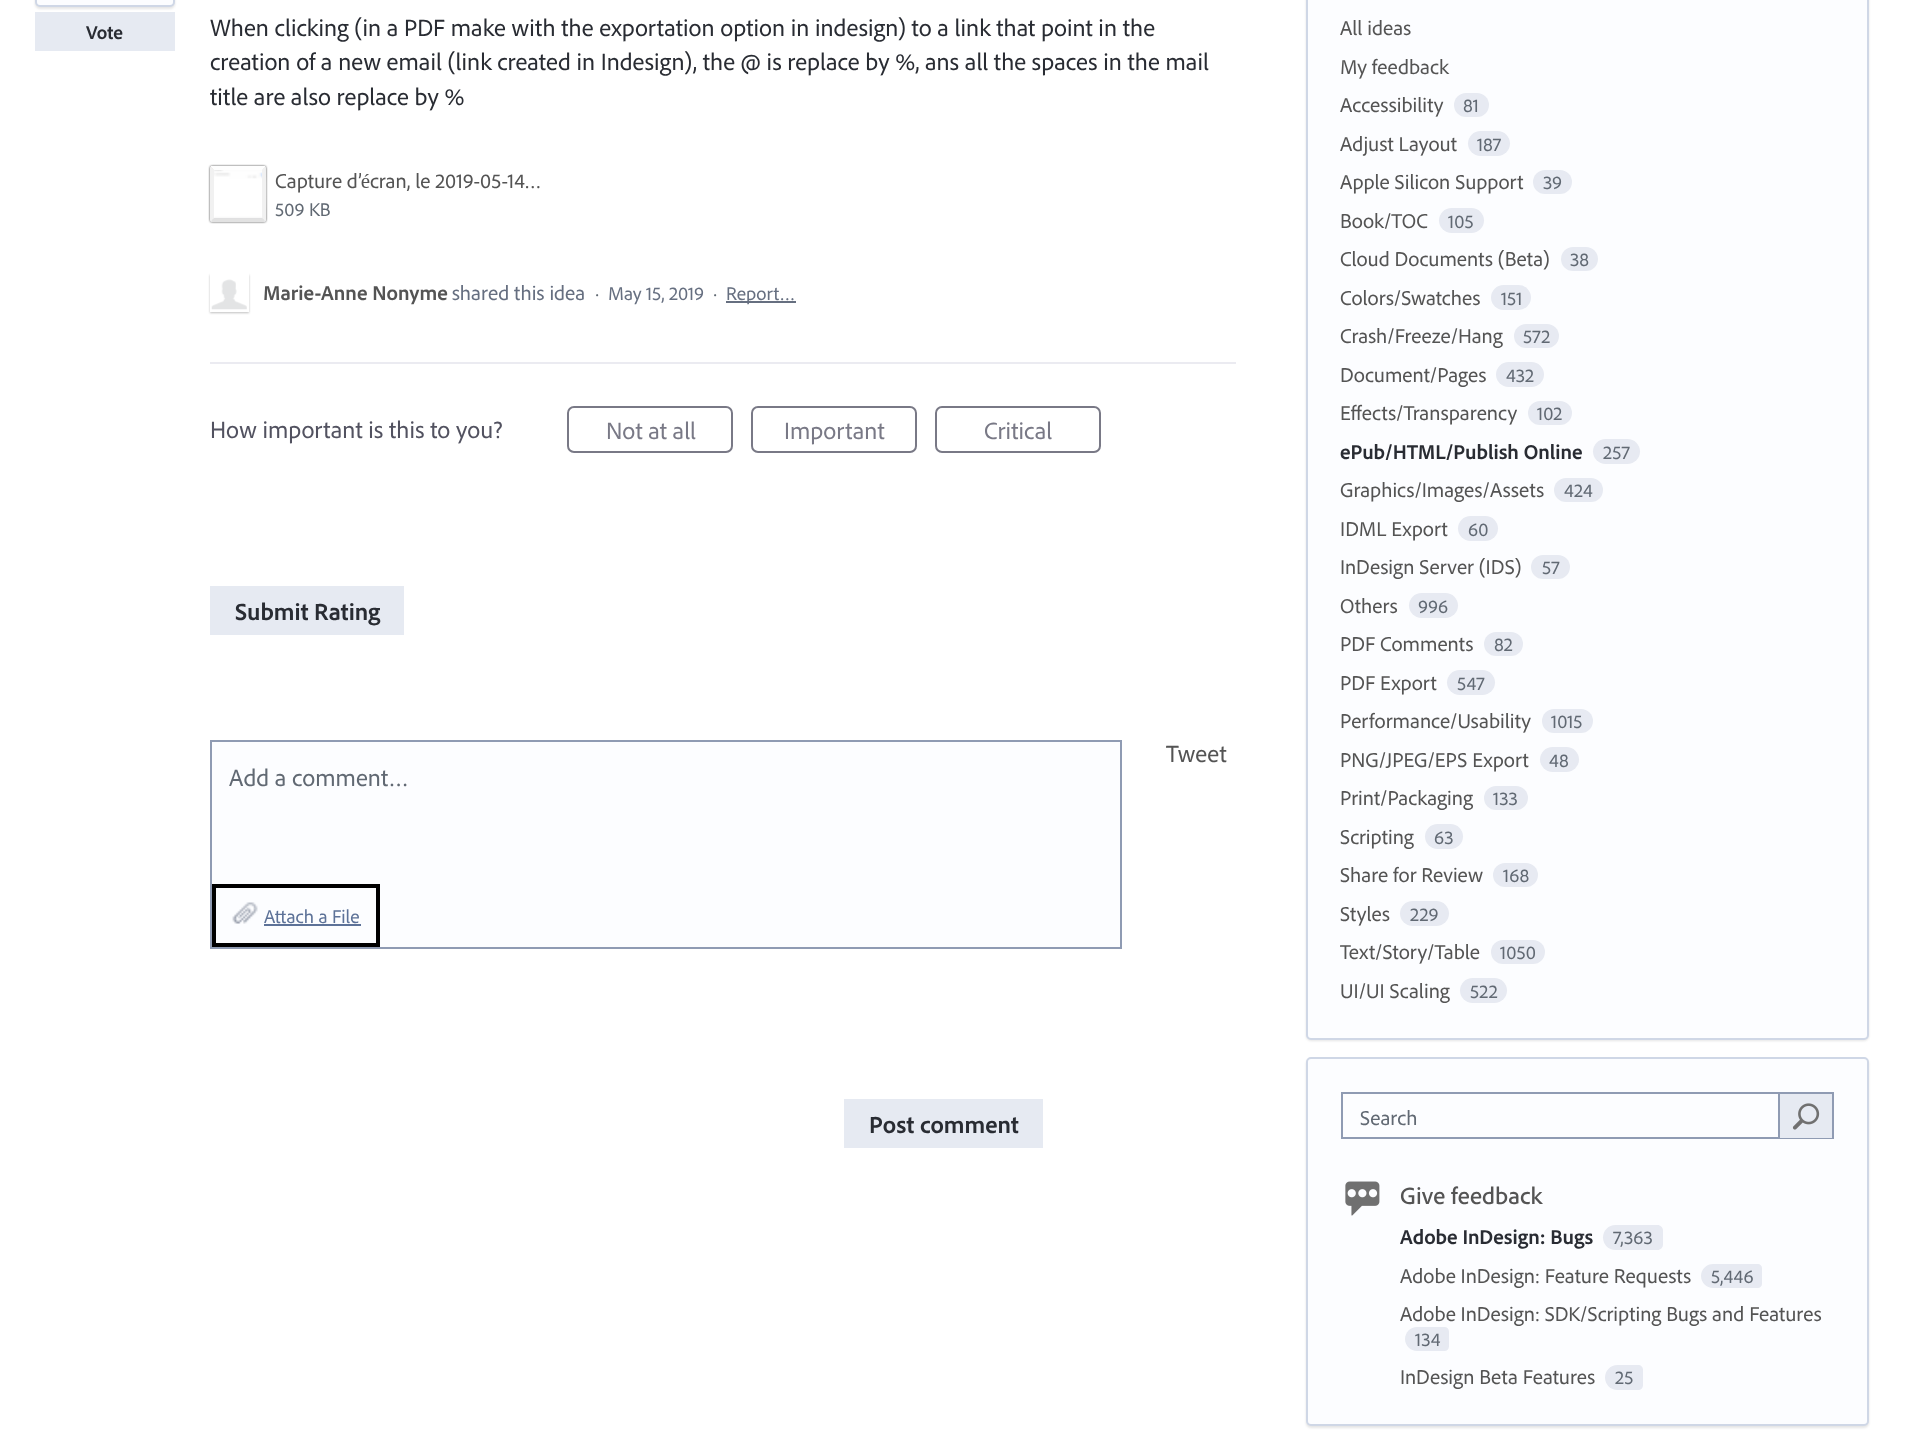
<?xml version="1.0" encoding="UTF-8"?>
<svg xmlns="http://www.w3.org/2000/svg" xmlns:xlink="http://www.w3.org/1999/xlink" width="1905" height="1449">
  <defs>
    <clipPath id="clip1"><path d="M 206 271 h 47 v 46 h -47 z m 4 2 h 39 v 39 h -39 z" clip-rule="evenodd" /></clipPath>
  </defs>
  <rect width="100%" height="100%" fill="#ffffff" />
  <rect x="35" y="-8" width="140" height="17" rx="5" fill="#000000" fill-opacity="0.1" filter="blur(1px)" />
  <rect x="36" y="-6" width="138" height="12" rx="4" fill="#fcfdff" stroke="#cfd7e6" stroke-width="2" />
  <rect x="35" y="12" width="140" height="39" fill="#e6eaf2" />
  <rect x="210" y="166" width="56" height="56" rx="2" fill="#000000" fill-opacity="0.75" filter="blur(1px)" />
  <rect x="210" y="166" width="56" height="56" rx="2" fill="#fcfdff" />
  <image x="210" y="166" width="56" height="56" xlink:href="image1.png" />
  <path d="M 214 170 l -3 -3 v -1 h 54 v 1 l -3 3 z" fill="#fefefe" />
  <path d="M 266 220 c 0 -6 1 -52 -1 -53 l -3 3 v 48 l 3 3 z" fill="#f1f1f1" />
  <path d="M 265 221 l -1 1 h -52 l -1 -1 l 3 -3 v 1 h 48 v -1 z" fill="#e2e2e2" />
  <path d="M 210 168 v 52 l 1 1 l 3 -3 v -48 l -3 -3 z" fill="#f1f1f1" />
  <g clip-path="url(#clip1)">
    <rect x="210" y="275" width="39" height="38" fill="#000000" fill-opacity="0.25" filter="blur(1px)" />
  </g>
  <rect x="211" y="274" width="37" height="37" fill="none" stroke="#ffffff" stroke-width="2" />
  <image x="211" y="279" width="36" height="31" xlink:href="image2.png" />
  <rect x="726" y="301" width="70" height="2" fill="#666f80" />
  <rect x="210" y="362" width="1026" height="2" fill="#ebebf1" />
  <rect x="568" y="407" width="164" height="45" rx="6" fill="none" stroke="#797986" stroke-width="2" />
  <rect x="752" y="407" width="164" height="45" rx="6" fill="none" stroke="#797986" stroke-width="2" />
  <rect x="936" y="407" width="164" height="45" rx="6" fill="none" stroke="#797986" stroke-width="2" />
  <rect x="210" y="586" width="194" height="49" fill="#e6eaf2" />
  <rect x="211" y="741" width="910" height="207" fill="#fcfdff" stroke="#8f9bb3" stroke-width="2" />
  <image x="232" y="902" width="26" height="22" xlink:href="image3.png" />
  <rect x="214" y="886" width="164" height="59" fill="none" stroke="#000000" stroke-width="4" />
  <rect x="264" y="924" width="97" height="2" fill="#5d7298" />
  <rect x="844" y="1099" width="199" height="49" fill="#e6eaf2" />
  <rect x="1306" y="-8" width="563" height="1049" rx="5" fill="#000000" fill-opacity="0.1" filter="blur(1px)" />
  <rect x="1307" y="-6" width="561" height="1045" rx="4" fill="#fcfdff" stroke="#cfd7e6" stroke-width="2" />
  <rect x="1454" y="93" width="35" height="24" rx="12" fill="#e7eaf2" />
  <rect x="1468" y="131" width="42" height="25" rx="12.5" fill="#e7eaf2" />
  <rect x="1533" y="170" width="39" height="24" rx="12" fill="#e7eaf2" />
  <rect x="1439" y="208" width="45" height="25" rx="12.5" fill="#e7eaf2" />
  <rect x="1561" y="247" width="37" height="24" rx="12" fill="#e7eaf2" />
  <rect x="1491" y="285" width="40" height="25" rx="12.5" fill="#e7eaf2" />
  <rect x="1514" y="324" width="45" height="24" rx="12" fill="#e7eaf2" />
  <rect x="1496" y="362" width="48" height="25" rx="12.5" fill="#e7eaf2" />
  <rect x="1528" y="401" width="44" height="24" rx="12" fill="#e7eaf2" />
  <rect x="1593" y="439" width="47" height="25" rx="12.5" fill="#e7eaf2" />
  <rect x="1554" y="478" width="49" height="24" rx="12" fill="#e7eaf2" />
  <rect x="1458" y="516" width="40" height="25" rx="12.5" fill="#e7eaf2" />
  <rect x="1531" y="555" width="39" height="24" rx="12" fill="#e7eaf2" />
  <rect x="1409" y="593" width="49" height="25" rx="12.5" fill="#e7eaf2" />
  <rect x="1484" y="632" width="39" height="24" rx="12" fill="#e7eaf2" />
  <rect x="1447" y="670" width="48" height="25" rx="12.5" fill="#e7eaf2" />
  <rect x="1542" y="709" width="51" height="24" rx="12" fill="#e7eaf2" />
  <rect x="1540" y="747" width="39" height="25" rx="12.5" fill="#e7eaf2" />
  <rect x="1484" y="786" width="44" height="24" rx="12" fill="#e7eaf2" />
  <rect x="1425" y="824" width="38" height="25" rx="12.5" fill="#e7eaf2" />
  <rect x="1493" y="863" width="45" height="24" rx="12" fill="#e7eaf2" />
  <rect x="1400" y="901" width="49" height="25" rx="12.5" fill="#e7eaf2" />
  <rect x="1491" y="940" width="54" height="24" rx="12" fill="#e7eaf2" />
  <rect x="1460" y="978" width="47" height="25" rx="12.5" fill="#e7eaf2" />
  <rect x="1306" y="1059" width="563" height="369" rx="5" fill="#000000" fill-opacity="0.1" filter="blur(1px)" />
  <rect x="1307" y="1058" width="561" height="367" rx="4" fill="#fcfdff" stroke="#cfd7e6" stroke-width="2" />
  <rect x="1342" y="1093" width="491" height="45" fill="none" stroke="#8f9bb3" stroke-width="2" />
  <rect x="1780" y="1094" width="52" height="44" fill="#e6eaf2" />
  <rect x="1778" y="1094" width="2" height="44" fill="#8f9bb3" />
  <image x="1792" y="1103" width="28" height="27" xlink:href="image4.png" />
  <image x="1345" y="1181" width="35" height="35" xlink:href="image5.png" />
  <path d="M 1615.5 1225 h 36.5 v 25 h -36.5 c -7 0 -12.5 -5.5 -12.5 -12.5 c 0 -7 5.5 -12.5 12.5 -12.5 z" fill="#e7eaf2" />
  <path d="M 1652 1225 h 5.5 c 3 0 5.5 2.5 5.5 5.5 v 14 c 0 3 -2.5 5.5 -5.5 5.5 h -5.5 z" fill="#e7eaf2" />
  <path d="M 1713 1264 h 41 v 24 h -41 c -6.5 0 -12 -5.5 -12 -12 c 0 -6.5 5.5 -12 12 -12 z" fill="#e7eaf2" />
  <path d="M 1754 1264 h 4 c 2 0 4 2 4 4 v 16 c 0 2 -2 4 -4 4 h -4 z" fill="#e7eaf2" />
  <path d="M 1417 1327 h 23 v 24 h -23 c -6.5 0 -12 -5.5 -12 -12 c 0 -6.5 5.5 -12 12 -12 z" fill="#e7eaf2" />
  <path d="M 1440 1327 h 4.5 c 2.5 0 4.5 2 4.5 4.5 v 15 c 0 2.5 -2 4.5 -4.5 4.5 h -4.5 z" fill="#e7eaf2" />
  <path d="M 1617.5 1365 h 15.5 v 25 h -15.5 c -7 0 -12.5 -5.5 -12.5 -12.5 c 0 -7 5.5 -12.5 12.5 -12.5 z" fill="#e7eaf2" />
  <path d="M 1633 1365 h 5 c 3 0 5 2 5 5 v 15 c 0 3 -2 5 -5 5 h -5 z" fill="#e7eaf2" />
  <text x="86" y="39" style="font-family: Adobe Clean; font-size: 19.25px; font-weight: bold; fill: #292c33">Vote</text>
  <text x="210" y="36" style="font-family: Adobe Clean; font-size: 24.5px; fill: #292c33">When clicking (in a PDF make with the exportation option in indesign) to a link that point in the</text>
  <text x="210" y="70" style="font-family: Adobe Clean; font-size: 24.5px; fill: #292c33">creation of a new email (link created in Indesign), the @ is replace by %, ans all the spaces in the mail</text>
  <text x="210" y="105" style="font-family: Adobe Clean; font-size: 24.5px; fill: #292c33">title are also replace by %</text>
  <text x="275" y="188" style="font-family: Adobe Clean; font-size: 21px; fill: #545454">Capture d’écran, le 2019-05-14…</text>
  <text x="275" y="216" style="font-family: Adobe Clean; font-size: 19.25px; fill: #616973">509 KB</text>
  <text x="263" y="300" style="font-family: Adobe Clean; font-size: 21px; font-weight: bold; fill: #545454">Marie-Anne Nonyme</text>
  <text x="452" y="300" style="font-family: Adobe Clean; font-size: 21px; fill: #666f80">shared this idea</text>
  <text x="595" y="300" style="font-family: Adobe Clean; font-size: 19.25px; fill: #616973">·</text>
  <text x="608" y="300" style="font-family: Adobe Clean; font-size: 19.25px; fill: #666f80">May 15, 2019</text>
  <text x="713" y="300" style="font-family: Adobe Clean; font-size: 19.25px; fill: #616973">·</text>
  <text x="726" y="300" style="font-family: Adobe Clean; font-size: 19.25px; fill: #666f80">Report…</text>
  <text x="210" y="438" style="font-family: Adobe Clean; font-size: 24.5px; fill: #525260">How important is this to you?</text>
  <text x="606" y="439" style="font-family: Adobe Clean; font-size: 24.5px; fill: #797986">Not at all</text>
  <text x="784" y="439" style="font-family: Adobe Clean; font-size: 24.5px; fill: #797986">Important</text>
  <text x="984" y="439" style="font-family: Adobe Clean; font-size: 24.5px; fill: #797986">Critical</text>
  <text x="235" y="620" style="font-family: Adobe Clean; font-size: 24.5px; font-weight: bold; fill: #292c33">Submit Rating</text>
  <text x="1166" y="762" style="font-family: Adobe Clean; font-size: 24.5px; fill: #545454">Tweet</text>
  <text x="229" y="786" style="font-family: Adobe Clean; font-size: 24.5px; fill: #616973">Add a comment…</text>
  <text x="264" y="923" style="font-family: Adobe Clean; font-size: 19.25px; fill: #5d7298">Attach a File</text>
  <text x="869" y="1133" style="font-family: Adobe Clean; font-size: 24.5px; font-weight: bold; fill: #292c33">Post comment</text>
  <text x="1340" y="35" style="font-family: Adobe Clean; font-size: 21px; fill: #545454">All ideas</text>
  <text x="1340" y="74" style="font-family: Adobe Clean; font-size: 21px; fill: #545454">My feedback</text>
  <text x="1340" y="112" style="font-family: Adobe Clean; font-size: 21px; fill: #545454">Accessibility</text>
  <text x="1463" y="112" style="font-family: Adobe Clean; font-size: 19.25px; fill: #616973">81</text>
  <text x="1340" y="151" style="font-family: Adobe Clean; font-size: 21px; fill: #545454">Adjust Layout</text>
  <text x="1477" y="151" style="font-family: Adobe Clean; font-size: 19.25px; fill: #616973">187</text>
  <text x="1340" y="189" style="font-family: Adobe Clean; font-size: 21px; fill: #545454">Apple Silicon Support</text>
  <text x="1543" y="189" style="font-family: Adobe Clean; font-size: 19.25px; fill: #616973">39</text>
  <text x="1340" y="228" style="font-family: Adobe Clean; font-size: 21px; fill: #545454">Book/TOC</text>
  <text x="1448" y="228" style="font-family: Adobe Clean; font-size: 19.25px; fill: #616973">105</text>
  <text x="1340" y="266" style="font-family: Adobe Clean; font-size: 21px; fill: #545454">Cloud Documents (Beta)</text>
  <text x="1570" y="266" style="font-family: Adobe Clean; font-size: 19.25px; fill: #616973">38</text>
  <text x="1340" y="305" style="font-family: Adobe Clean; font-size: 21px; fill: #545454">Colors/Swatches</text>
  <text x="1501" y="305" style="font-family: Adobe Clean; font-size: 19.25px; fill: #616973">151</text>
  <text x="1340" y="343" style="font-family: Adobe Clean; font-size: 21px; fill: #545454">Crash/Freeze/Hang</text>
  <text x="1523" y="343" style="font-family: Adobe Clean; font-size: 19.25px; fill: #616973">572</text>
  <text x="1340" y="382" style="font-family: Adobe Clean; font-size: 21px; fill: #545454">Document/Pages</text>
  <text x="1506" y="382" style="font-family: Adobe Clean; font-size: 19.25px; fill: #616973">432</text>
  <text x="1340" y="420" style="font-family: Adobe Clean; font-size: 21px; fill: #545454">Effects/Transparency</text>
  <text x="1537" y="420" style="font-family: Adobe Clean; font-size: 19.25px; fill: #616973">102</text>
  <text x="1340" y="459" style="font-family: Adobe Clean; font-size: 21px; font-weight: bold; fill: #292c33">ePub/HTML/Publish Online</text>
  <text x="1603" y="459" style="font-family: Adobe Clean; font-size: 19.25px; fill: #616973">257</text>
  <text x="1340" y="497" style="font-family: Adobe Clean; font-size: 21px; fill: #545454">Graphics/Images/Assets</text>
  <text x="1564" y="497" style="font-family: Adobe Clean; font-size: 19.25px; fill: #616973">424</text>
  <text x="1340" y="536" style="font-family: Adobe Clean; font-size: 21px; fill: #545454">IDML Export</text>
  <text x="1468" y="536" style="font-family: Adobe Clean; font-size: 19.25px; fill: #616973">60</text>
  <text x="1340" y="574" style="font-family: Adobe Clean; font-size: 21px; fill: #545454">InDesign Server (IDS)</text>
  <text x="1542" y="574" style="font-family: Adobe Clean; font-size: 19.25px; fill: #616973">57</text>
  <text x="1340" y="613" style="font-family: Adobe Clean; font-size: 21px; fill: #545454">Others</text>
  <text x="1418" y="613" style="font-family: Adobe Clean; font-size: 19.25px; fill: #616973">996</text>
  <text x="1340" y="651" style="font-family: Adobe Clean; font-size: 21px; fill: #545454">PDF Comments</text>
  <text x="1494" y="651" style="font-family: Adobe Clean; font-size: 19.25px; fill: #616973">82</text>
  <text x="1340" y="690" style="font-family: Adobe Clean; font-size: 21px; fill: #545454">PDF Export</text>
  <text x="1457" y="690" style="font-family: Adobe Clean; font-size: 19.25px; fill: #616973">547</text>
  <text x="1340" y="728" style="font-family: Adobe Clean; font-size: 21px; fill: #545454">Performance/Usability</text>
  <text x="1551" y="728" style="font-family: Adobe Clean; font-size: 19.25px; fill: #616973">1015</text>
  <text x="1340" y="767" style="font-family: Adobe Clean; font-size: 21px; fill: #545454">PNG/JPEG/EPS Export</text>
  <text x="1549" y="767" style="font-family: Adobe Clean; font-size: 19.25px; fill: #616973">48</text>
  <text x="1340" y="805" style="font-family: Adobe Clean; font-size: 21px; fill: #545454">Print/Packaging</text>
  <text x="1493" y="805" style="font-family: Adobe Clean; font-size: 19.25px; fill: #616973">133</text>
  <text x="1340" y="844" style="font-family: Adobe Clean; font-size: 21px; fill: #545454">Scripting</text>
  <text x="1434" y="844" style="font-family: Adobe Clean; font-size: 19.25px; fill: #616973">63</text>
  <text x="1340" y="882" style="font-family: Adobe Clean; font-size: 21px; fill: #545454">Share for Review</text>
  <text x="1503" y="882" style="font-family: Adobe Clean; font-size: 19.25px; fill: #616973">168</text>
  <text x="1340" y="921" style="font-family: Adobe Clean; font-size: 21px; fill: #545454">Styles</text>
  <text x="1410" y="921" style="font-family: Adobe Clean; font-size: 19.25px; fill: #616973">229</text>
  <text x="1340" y="959" style="font-family: Adobe Clean; font-size: 21px; fill: #545454">Text/Story/Table</text>
  <text x="1500" y="959" style="font-family: Adobe Clean; font-size: 19.25px; fill: #616973">1050</text>
  <text x="1340" y="998" style="font-family: Adobe Clean; font-size: 21px; fill: #545454">UI/UI Scaling</text>
  <text x="1470" y="998" style="font-family: Adobe Clean; font-size: 19.25px; fill: #616973">522</text>
  <text x="1360" y="1125" style="font-family: Adobe Clean; font-size: 21px; fill: #616973">Search</text>
  <text x="1400" y="1204" style="font-family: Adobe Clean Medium; font-size: 24.5px; font-weight: 500; fill: #545454">Give feedback</text>
  <text x="1400" y="1244" style="font-family: Adobe Clean; font-size: 21px; font-weight: bold; fill: #292c33">Adobe InDesign: Bugs</text>
  <text x="1613" y="1244" style="font-family: Adobe Clean; font-size: 19.25px; fill: #616973">7,363</text>
  <text x="1400" y="1283" style="font-family: Adobe Clean; font-size: 21px; fill: #545454">Adobe InDesign: Feature Requests</text>
  <text x="1711" y="1283" style="font-family: Adobe Clean; font-size: 19.25px; fill: #616973">5,446</text>
  <text x="1400" y="1321" style="font-family: Adobe Clean; font-size: 21px; fill: #545454">Adobe InDesign: SDK/Scripting Bugs and Features</text>
  <text x="1415" y="1346" style="font-family: Adobe Clean; font-size: 19.25px; fill: #616973">134</text>
  <text x="1400" y="1384" style="font-family: Adobe Clean; font-size: 21px; fill: #545454">InDesign Beta Features</text>
  <text x="1615" y="1384" style="font-family: Adobe Clean; font-size: 19.25px; fill: #616973">25</text>
</svg>
